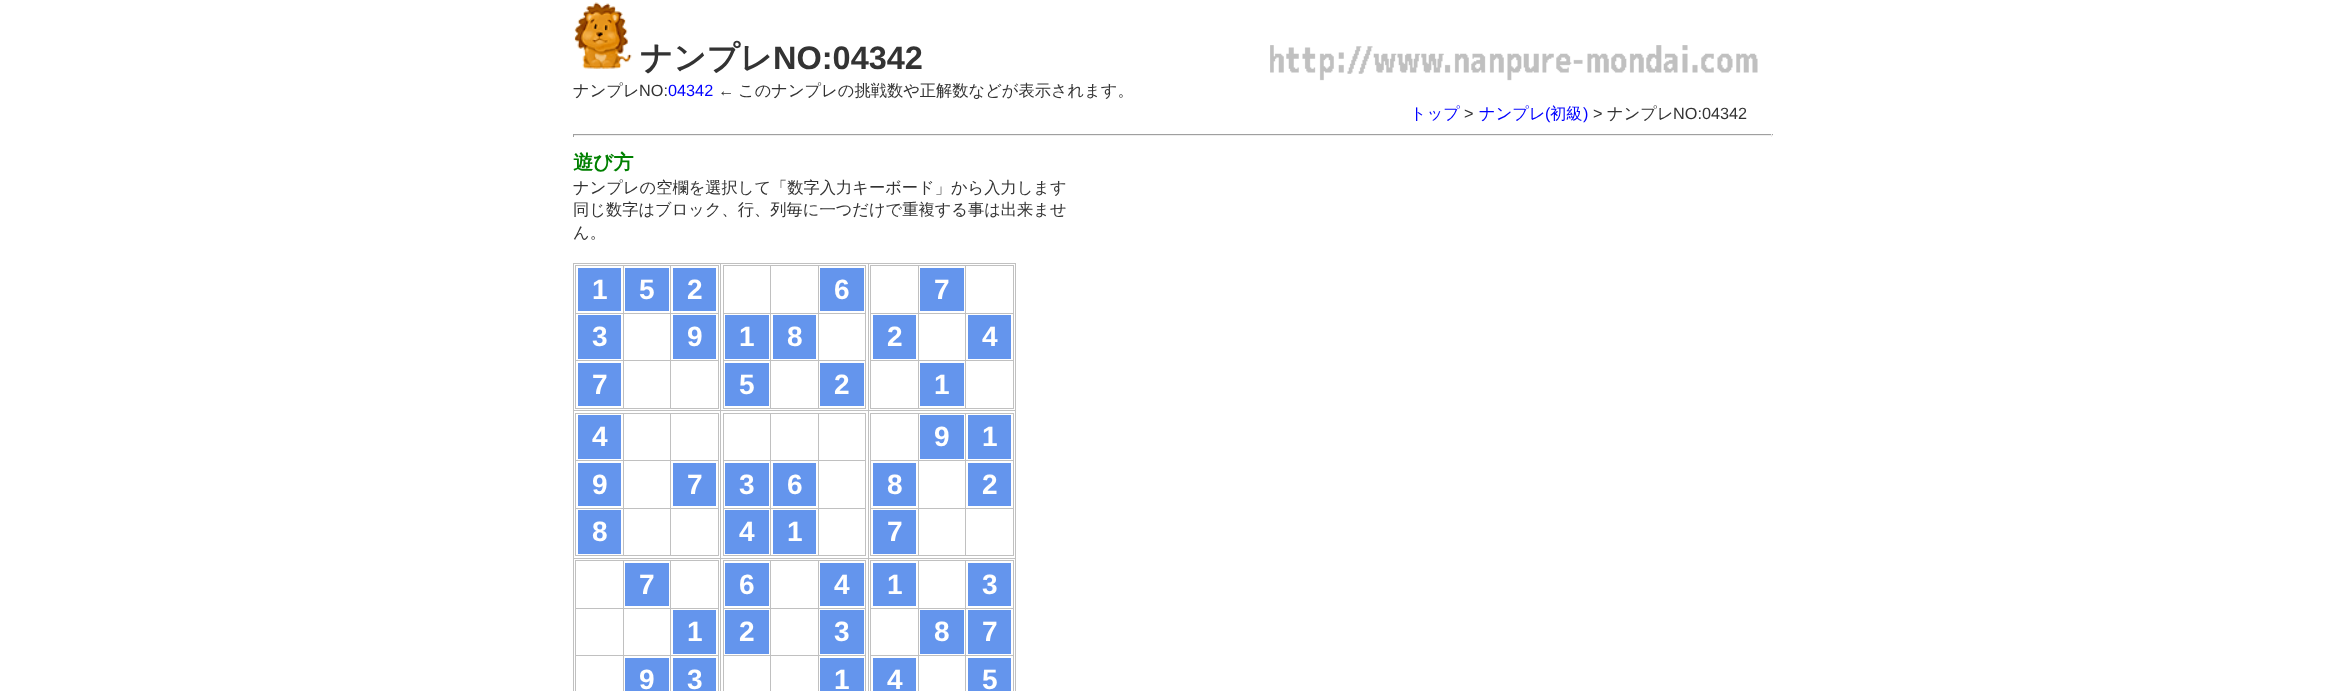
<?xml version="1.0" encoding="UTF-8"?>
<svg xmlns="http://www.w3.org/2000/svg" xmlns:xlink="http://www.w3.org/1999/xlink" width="2344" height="691">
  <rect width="100%" height="100%" fill="#ffffff" />
  <image x="1270" y="45" width="488" height="36" xlink:href="image1.png" />
  <image x="574" y="2" width="58" height="67" xlink:href="image2.png" />
  <rect x="573" y="134" width="1200" height="1" fill="#9f9f9f" />
  <rect x="1771" y="134" width="1" height="3" fill="#eeeeee" />
  <rect x="573" y="135" width="1200" height="1" fill="#eeeeee" />
  <rect x="573" y="134" width="1" height="3" fill="#9f9f9f" />
  <rect x="573" y="263" width="443" height="1" fill="#c0c0c0" />
  <rect x="1015" y="263" width="1" height="428" fill="#c0c0c0" />
  <rect x="573" y="263" width="1" height="428" fill="#c0c0c0" />
  <rect x="575" y="265" width="144" height="1" fill="#c0c0c0" />
  <rect x="718" y="265" width="1" height="144" fill="#c0c0c0" />
  <rect x="575" y="408" width="144" height="1" fill="#c0c0c0" />
  <rect x="575" y="265" width="1" height="144" fill="#c0c0c0" />
  <rect x="578" y="268" width="43" height="43" fill="#6495ed" />
  <rect x="670" y="313" width="49" height="1" fill="#c0c0c0" />
  <rect x="670" y="360" width="49" height="1" fill="#c0c0c0" />
  <rect x="670" y="360" width="1" height="49" fill="#c0c0c0" />
  <rect x="623" y="360" width="48" height="1" fill="#c0c0c0" />
  <rect x="670" y="313" width="1" height="48" fill="#c0c0c0" />
  <rect x="623" y="313" width="48" height="1" fill="#c0c0c0" />
  <rect x="623" y="360" width="1" height="49" fill="#c0c0c0" />
  <rect x="575" y="360" width="49" height="1" fill="#c0c0c0" />
  <rect x="623" y="313" width="1" height="48" fill="#c0c0c0" />
  <rect x="575" y="313" width="49" height="1" fill="#c0c0c0" />
  <rect x="623" y="265" width="1" height="49" fill="#c0c0c0" />
  <rect x="625" y="268" width="44" height="43" fill="#6495ed" />
  <rect x="670" y="265" width="1" height="49" fill="#c0c0c0" />
  <rect x="673" y="268" width="43" height="43" fill="#6495ed" />
  <rect x="578" y="315" width="43" height="44" fill="#6495ed" />
  <rect x="673" y="315" width="43" height="44" fill="#6495ed" />
  <rect x="578" y="363" width="43" height="43" fill="#6495ed" />
  <rect x="868" y="410" width="148" height="1" fill="#c0c0c0" />
  <rect x="868" y="558" width="148" height="1" fill="#c0c0c0" />
  <rect x="868" y="558" width="1" height="133" fill="#c0c0c0" />
  <rect x="720" y="558" width="149" height="1" fill="#c0c0c0" />
  <rect x="868" y="410" width="1" height="149" fill="#c0c0c0" />
  <rect x="720" y="410" width="149" height="1" fill="#c0c0c0" />
  <rect x="720" y="558" width="1" height="133" fill="#c0c0c0" />
  <rect x="573" y="558" width="148" height="1" fill="#c0c0c0" />
  <rect x="720" y="410" width="1" height="149" fill="#c0c0c0" />
  <rect x="573" y="410" width="148" height="1" fill="#c0c0c0" />
  <rect x="720" y="263" width="1" height="148" fill="#c0c0c0" />
  <rect x="723" y="265" width="143" height="1" fill="#c0c0c0" />
  <rect x="865" y="265" width="1" height="144" fill="#c0c0c0" />
  <rect x="723" y="408" width="143" height="1" fill="#c0c0c0" />
  <rect x="723" y="265" width="1" height="144" fill="#c0c0c0" />
  <rect x="818" y="313" width="48" height="1" fill="#c0c0c0" />
  <rect x="818" y="360" width="48" height="1" fill="#c0c0c0" />
  <rect x="818" y="360" width="1" height="49" fill="#c0c0c0" />
  <rect x="770" y="360" width="49" height="1" fill="#c0c0c0" />
  <rect x="818" y="313" width="1" height="48" fill="#c0c0c0" />
  <rect x="770" y="313" width="49" height="1" fill="#c0c0c0" />
  <rect x="770" y="360" width="1" height="49" fill="#c0c0c0" />
  <rect x="723" y="360" width="48" height="1" fill="#c0c0c0" />
  <rect x="770" y="313" width="1" height="48" fill="#c0c0c0" />
  <rect x="723" y="313" width="48" height="1" fill="#c0c0c0" />
  <rect x="770" y="265" width="1" height="49" fill="#c0c0c0" />
  <rect x="818" y="265" width="1" height="49" fill="#c0c0c0" />
  <rect x="820" y="268" width="44" height="43" fill="#6495ed" />
  <rect x="725" y="315" width="44" height="44" fill="#6495ed" />
  <rect x="773" y="315" width="43" height="44" fill="#6495ed" />
  <rect x="725" y="363" width="44" height="43" fill="#6495ed" />
  <rect x="820" y="363" width="44" height="43" fill="#6495ed" />
  <rect x="868" y="263" width="1" height="148" fill="#c0c0c0" />
  <rect x="870" y="265" width="144" height="1" fill="#c0c0c0" />
  <rect x="1013" y="265" width="1" height="144" fill="#c0c0c0" />
  <rect x="870" y="408" width="144" height="1" fill="#c0c0c0" />
  <rect x="870" y="265" width="1" height="144" fill="#c0c0c0" />
  <rect x="965" y="313" width="49" height="1" fill="#c0c0c0" />
  <rect x="965" y="360" width="49" height="1" fill="#c0c0c0" />
  <rect x="965" y="360" width="1" height="49" fill="#c0c0c0" />
  <rect x="918" y="360" width="48" height="1" fill="#c0c0c0" />
  <rect x="965" y="313" width="1" height="48" fill="#c0c0c0" />
  <rect x="918" y="313" width="48" height="1" fill="#c0c0c0" />
  <rect x="918" y="360" width="1" height="49" fill="#c0c0c0" />
  <rect x="870" y="360" width="49" height="1" fill="#c0c0c0" />
  <rect x="918" y="313" width="1" height="48" fill="#c0c0c0" />
  <rect x="870" y="313" width="49" height="1" fill="#c0c0c0" />
  <rect x="918" y="265" width="1" height="49" fill="#c0c0c0" />
  <rect x="920" y="268" width="44" height="43" fill="#6495ed" />
  <rect x="965" y="265" width="1" height="49" fill="#c0c0c0" />
  <rect x="873" y="315" width="43" height="44" fill="#6495ed" />
  <rect x="968" y="315" width="43" height="44" fill="#6495ed" />
  <rect x="920" y="363" width="44" height="43" fill="#6495ed" />
  <rect x="575" y="413" width="144" height="1" fill="#c0c0c0" />
  <rect x="718" y="413" width="1" height="143" fill="#c0c0c0" />
  <rect x="575" y="555" width="144" height="1" fill="#c0c0c0" />
  <rect x="575" y="413" width="1" height="143" fill="#c0c0c0" />
  <rect x="578" y="415" width="43" height="44" fill="#6495ed" />
  <rect x="670" y="460" width="49" height="1" fill="#c0c0c0" />
  <rect x="670" y="508" width="49" height="1" fill="#c0c0c0" />
  <rect x="670" y="508" width="1" height="48" fill="#c0c0c0" />
  <rect x="623" y="508" width="48" height="1" fill="#c0c0c0" />
  <rect x="670" y="460" width="1" height="49" fill="#c0c0c0" />
  <rect x="623" y="460" width="48" height="1" fill="#c0c0c0" />
  <rect x="623" y="508" width="1" height="48" fill="#c0c0c0" />
  <rect x="575" y="508" width="49" height="1" fill="#c0c0c0" />
  <rect x="623" y="460" width="1" height="49" fill="#c0c0c0" />
  <rect x="575" y="460" width="49" height="1" fill="#c0c0c0" />
  <rect x="623" y="413" width="1" height="48" fill="#c0c0c0" />
  <rect x="670" y="413" width="1" height="48" fill="#c0c0c0" />
  <rect x="578" y="463" width="43" height="43" fill="#6495ed" />
  <rect x="673" y="463" width="43" height="43" fill="#6495ed" />
  <rect x="578" y="510" width="43" height="44" fill="#6495ed" />
  <rect x="723" y="413" width="143" height="1" fill="#c0c0c0" />
  <rect x="865" y="413" width="1" height="143" fill="#c0c0c0" />
  <rect x="723" y="555" width="143" height="1" fill="#c0c0c0" />
  <rect x="723" y="413" width="1" height="143" fill="#c0c0c0" />
  <rect x="818" y="460" width="48" height="1" fill="#c0c0c0" />
  <rect x="818" y="508" width="48" height="1" fill="#c0c0c0" />
  <rect x="818" y="508" width="1" height="48" fill="#c0c0c0" />
  <rect x="770" y="508" width="49" height="1" fill="#c0c0c0" />
  <rect x="818" y="460" width="1" height="49" fill="#c0c0c0" />
  <rect x="770" y="460" width="49" height="1" fill="#c0c0c0" />
  <rect x="770" y="508" width="1" height="48" fill="#c0c0c0" />
  <rect x="723" y="508" width="48" height="1" fill="#c0c0c0" />
  <rect x="770" y="460" width="1" height="49" fill="#c0c0c0" />
  <rect x="723" y="460" width="48" height="1" fill="#c0c0c0" />
  <rect x="770" y="413" width="1" height="48" fill="#c0c0c0" />
  <rect x="818" y="413" width="1" height="48" fill="#c0c0c0" />
  <rect x="725" y="463" width="44" height="43" fill="#6495ed" />
  <rect x="773" y="463" width="43" height="43" fill="#6495ed" />
  <rect x="725" y="510" width="44" height="44" fill="#6495ed" />
  <rect x="773" y="510" width="43" height="44" fill="#6495ed" />
  <rect x="870" y="413" width="144" height="1" fill="#c0c0c0" />
  <rect x="1013" y="413" width="1" height="143" fill="#c0c0c0" />
  <rect x="870" y="555" width="144" height="1" fill="#c0c0c0" />
  <rect x="870" y="413" width="1" height="143" fill="#c0c0c0" />
  <rect x="965" y="460" width="49" height="1" fill="#c0c0c0" />
  <rect x="965" y="508" width="49" height="1" fill="#c0c0c0" />
  <rect x="965" y="508" width="1" height="48" fill="#c0c0c0" />
  <rect x="918" y="508" width="48" height="1" fill="#c0c0c0" />
  <rect x="965" y="460" width="1" height="49" fill="#c0c0c0" />
  <rect x="918" y="460" width="48" height="1" fill="#c0c0c0" />
  <rect x="918" y="508" width="1" height="48" fill="#c0c0c0" />
  <rect x="870" y="508" width="49" height="1" fill="#c0c0c0" />
  <rect x="918" y="460" width="1" height="49" fill="#c0c0c0" />
  <rect x="870" y="460" width="49" height="1" fill="#c0c0c0" />
  <rect x="918" y="413" width="1" height="48" fill="#c0c0c0" />
  <rect x="920" y="415" width="44" height="44" fill="#6495ed" />
  <rect x="965" y="413" width="1" height="48" fill="#c0c0c0" />
  <rect x="968" y="415" width="43" height="44" fill="#6495ed" />
  <rect x="873" y="463" width="43" height="43" fill="#6495ed" />
  <rect x="968" y="463" width="43" height="43" fill="#6495ed" />
  <rect x="873" y="510" width="43" height="44" fill="#6495ed" />
  <rect x="575" y="560" width="144" height="1" fill="#c0c0c0" />
  <rect x="718" y="560" width="1" height="131" fill="#c0c0c0" />
  <rect x="575" y="560" width="1" height="131" fill="#c0c0c0" />
  <rect x="670" y="608" width="49" height="1" fill="#c0c0c0" />
  <rect x="670" y="655" width="49" height="1" fill="#c0c0c0" />
  <rect x="670" y="655" width="1" height="36" fill="#c0c0c0" />
  <rect x="623" y="655" width="48" height="1" fill="#c0c0c0" />
  <rect x="670" y="608" width="1" height="48" fill="#c0c0c0" />
  <rect x="623" y="608" width="48" height="1" fill="#c0c0c0" />
  <rect x="623" y="655" width="1" height="36" fill="#c0c0c0" />
  <rect x="575" y="655" width="49" height="1" fill="#c0c0c0" />
  <rect x="623" y="608" width="1" height="48" fill="#c0c0c0" />
  <rect x="575" y="608" width="49" height="1" fill="#c0c0c0" />
  <rect x="623" y="560" width="1" height="49" fill="#c0c0c0" />
  <rect x="625" y="563" width="44" height="43" fill="#6495ed" />
  <rect x="670" y="560" width="1" height="49" fill="#c0c0c0" />
  <rect x="673" y="610" width="43" height="44" fill="#6495ed" />
  <rect x="625" y="658" width="44" height="33" fill="#6495ed" />
  <rect x="673" y="658" width="43" height="33" fill="#6495ed" />
  <rect x="723" y="560" width="143" height="1" fill="#c0c0c0" />
  <rect x="865" y="560" width="1" height="131" fill="#c0c0c0" />
  <rect x="723" y="560" width="1" height="131" fill="#c0c0c0" />
  <rect x="725" y="563" width="44" height="43" fill="#6495ed" />
  <rect x="818" y="608" width="48" height="1" fill="#c0c0c0" />
  <rect x="818" y="655" width="48" height="1" fill="#c0c0c0" />
  <rect x="818" y="655" width="1" height="36" fill="#c0c0c0" />
  <rect x="770" y="655" width="49" height="1" fill="#c0c0c0" />
  <rect x="818" y="608" width="1" height="48" fill="#c0c0c0" />
  <rect x="770" y="608" width="49" height="1" fill="#c0c0c0" />
  <rect x="770" y="655" width="1" height="36" fill="#c0c0c0" />
  <rect x="723" y="655" width="48" height="1" fill="#c0c0c0" />
  <rect x="770" y="608" width="1" height="48" fill="#c0c0c0" />
  <rect x="723" y="608" width="48" height="1" fill="#c0c0c0" />
  <rect x="770" y="560" width="1" height="49" fill="#c0c0c0" />
  <rect x="818" y="560" width="1" height="49" fill="#c0c0c0" />
  <rect x="820" y="563" width="44" height="43" fill="#6495ed" />
  <rect x="725" y="610" width="44" height="44" fill="#6495ed" />
  <rect x="820" y="610" width="44" height="44" fill="#6495ed" />
  <rect x="820" y="658" width="44" height="33" fill="#6495ed" />
  <rect x="870" y="560" width="144" height="1" fill="#c0c0c0" />
  <rect x="1013" y="560" width="1" height="131" fill="#c0c0c0" />
  <rect x="870" y="560" width="1" height="131" fill="#c0c0c0" />
  <rect x="873" y="563" width="43" height="43" fill="#6495ed" />
  <rect x="965" y="608" width="49" height="1" fill="#c0c0c0" />
  <rect x="965" y="655" width="49" height="1" fill="#c0c0c0" />
  <rect x="965" y="655" width="1" height="36" fill="#c0c0c0" />
  <rect x="918" y="655" width="48" height="1" fill="#c0c0c0" />
  <rect x="965" y="608" width="1" height="48" fill="#c0c0c0" />
  <rect x="918" y="608" width="48" height="1" fill="#c0c0c0" />
  <rect x="918" y="655" width="1" height="36" fill="#c0c0c0" />
  <rect x="870" y="655" width="49" height="1" fill="#c0c0c0" />
  <rect x="918" y="608" width="1" height="48" fill="#c0c0c0" />
  <rect x="870" y="608" width="49" height="1" fill="#c0c0c0" />
  <rect x="918" y="560" width="1" height="49" fill="#c0c0c0" />
  <rect x="965" y="560" width="1" height="49" fill="#c0c0c0" />
  <rect x="968" y="563" width="43" height="43" fill="#6495ed" />
  <rect x="920" y="610" width="44" height="44" fill="#6495ed" />
  <rect x="968" y="610" width="43" height="44" fill="#6495ed" />
  <rect x="873" y="658" width="43" height="33" fill="#6495ed" />
  <rect x="968" y="658" width="43" height="33" fill="#6495ed" />
  <text x="640" y="69" style="font-family: WenQuanYi Zen Hei; font-size: 32.5px; font-weight: bold; fill: #333333">ナンプレ</text>
  <text x="773" y="69" style="font-family: Liberation Sans; font-size: 32.5px; font-weight: bold; fill: #333333">NO:04342</text>
  <text x="573" y="96" style="font-family: WenQuanYi Zen Hei; font-size: 16.25px; font-weight: 500; fill: #333333">ナンプレ</text>
  <text x="639" y="96" style="font-family: Liberation Sans; font-size: 16.25px; fill: #333333">NO:</text>
  <text x="668" y="96" style="font-family: Liberation Sans; font-size: 16.25px; fill: #0000ff">04342</text>
  <text x="718" y="96" style="font-family: Liberation Sans; font-size: 16.25px; fill: #333333">←</text>
  <text x="738" y="96" style="font-family: WenQuanYi Zen Hei; font-size: 16.25px; font-weight: 500; fill: #333333">このナンプレの挑戦数や正解数などが表示されます。</text>
  <text x="1410" y="119" style="font-family: WenQuanYi Zen Hei; font-size: 16.25px; font-weight: 500; fill: #0000ff">トップ</text>
  <text x="1464" y="119" style="font-family: Liberation Sans; font-size: 16.25px; fill: #333333">&gt;</text>
  <text x="1479" y="119" style="font-family: WenQuanYi Zen Hei; font-size: 16.25px; font-weight: 500; fill: #0000ff">ナンプレ</text>
  <text x="1545" y="119" style="font-family: Liberation Sans; font-size: 16.25px; fill: #0000ff">(</text>
  <text x="1550" y="119" style="font-family: WenQuanYi Zen Hei; font-size: 16.25px; font-weight: 500; fill: #0000ff">初級</text>
  <text x="1583" y="119" style="font-family: Liberation Sans; font-size: 16.25px; fill: #0000ff">)</text>
  <text x="1593" y="119" style="font-family: Liberation Sans; font-size: 16.25px; fill: #333333">&gt;</text>
  <text x="1607" y="119" style="font-family: WenQuanYi Zen Hei; font-size: 16.25px; font-weight: 500; fill: #333333">ナンプレ</text>
  <text x="1673" y="119" style="font-family: Liberation Sans; font-size: 16.25px; fill: #333333">NO:04342</text>
  <text x="573" y="169" style="font-family: WenQuanYi Zen Hei; font-size: 20px; font-weight: bold; fill: #008000">遊び方</text>
  <text x="573" y="193" style="font-family: WenQuanYi Zen Hei; font-size: 16.25px; font-weight: 500; fill: #333333">ナンプレの空欄を選択して「数字入力キーボード」から入力します</text>
  <text x="573" y="215" style="font-family: WenQuanYi Zen Hei; font-size: 16.25px; font-weight: 500; fill: #333333">同じ数字はブロック、行、列毎に一つだけで重複する事は出来ませ</text>
  <text x="573" y="238" style="font-family: WenQuanYi Zen Hei; font-size: 16.25px; font-weight: 500; fill: #333333">ん。</text>
  <text x="592" y="299" style="font-family: Liberation Sans; font-size: 28px; font-weight: bold; fill: #ffffff">1</text>
  <text x="639" y="299" style="font-family: Liberation Sans; font-size: 28px; font-weight: bold; fill: #ffffff">5</text>
  <text x="687" y="299" style="font-family: Liberation Sans; font-size: 28px; font-weight: bold; fill: #ffffff">2</text>
  <text x="592" y="346" style="font-family: Liberation Sans; font-size: 28px; font-weight: bold; fill: #ffffff">3</text>
  <text x="687" y="346" style="font-family: Liberation Sans; font-size: 28px; font-weight: bold; fill: #ffffff">9</text>
  <text x="592" y="394" style="font-family: Liberation Sans; font-size: 28px; font-weight: bold; fill: #ffffff">7</text>
  <text x="834" y="299" style="font-family: Liberation Sans; font-size: 28px; font-weight: bold; fill: #ffffff">6</text>
  <text x="739" y="346" style="font-family: Liberation Sans; font-size: 28px; font-weight: bold; fill: #ffffff">1</text>
  <text x="787" y="346" style="font-family: Liberation Sans; font-size: 28px; font-weight: bold; fill: #ffffff">8</text>
  <text x="739" y="394" style="font-family: Liberation Sans; font-size: 28px; font-weight: bold; fill: #ffffff">5</text>
  <text x="834" y="394" style="font-family: Liberation Sans; font-size: 28px; font-weight: bold; fill: #ffffff">2</text>
  <text x="934" y="299" style="font-family: Liberation Sans; font-size: 28px; font-weight: bold; fill: #ffffff">7</text>
  <text x="887" y="346" style="font-family: Liberation Sans; font-size: 28px; font-weight: bold; fill: #ffffff">2</text>
  <text x="982" y="346" style="font-family: Liberation Sans; font-size: 28px; font-weight: bold; fill: #ffffff">4</text>
  <text x="934" y="394" style="font-family: Liberation Sans; font-size: 28px; font-weight: bold; fill: #ffffff">1</text>
  <text x="592" y="446" style="font-family: Liberation Sans; font-size: 28px; font-weight: bold; fill: #ffffff">4</text>
  <text x="592" y="494" style="font-family: Liberation Sans; font-size: 28px; font-weight: bold; fill: #ffffff">9</text>
  <text x="687" y="494" style="font-family: Liberation Sans; font-size: 28px; font-weight: bold; fill: #ffffff">7</text>
  <text x="592" y="541" style="font-family: Liberation Sans; font-size: 28px; font-weight: bold; fill: #ffffff">8</text>
  <text x="739" y="494" style="font-family: Liberation Sans; font-size: 28px; font-weight: bold; fill: #ffffff">3</text>
  <text x="787" y="494" style="font-family: Liberation Sans; font-size: 28px; font-weight: bold; fill: #ffffff">6</text>
  <text x="739" y="541" style="font-family: Liberation Sans; font-size: 28px; font-weight: bold; fill: #ffffff">4</text>
  <text x="787" y="541" style="font-family: Liberation Sans; font-size: 28px; font-weight: bold; fill: #ffffff">1</text>
  <text x="934" y="446" style="font-family: Liberation Sans; font-size: 28px; font-weight: bold; fill: #ffffff">9</text>
  <text x="982" y="446" style="font-family: Liberation Sans; font-size: 28px; font-weight: bold; fill: #ffffff">1</text>
  <text x="887" y="494" style="font-family: Liberation Sans; font-size: 28px; font-weight: bold; fill: #ffffff">8</text>
  <text x="982" y="494" style="font-family: Liberation Sans; font-size: 28px; font-weight: bold; fill: #ffffff">2</text>
  <text x="887" y="541" style="font-family: Liberation Sans; font-size: 28px; font-weight: bold; fill: #ffffff">7</text>
  <text x="639" y="594" style="font-family: Liberation Sans; font-size: 28px; font-weight: bold; fill: #ffffff">7</text>
  <text x="687" y="641" style="font-family: Liberation Sans; font-size: 28px; font-weight: bold; fill: #ffffff">1</text>
  <text x="639" y="689" style="font-family: Liberation Sans; font-size: 28px; font-weight: bold; fill: #ffffff">9</text>
  <text x="687" y="689" style="font-family: Liberation Sans; font-size: 28px; font-weight: bold; fill: #ffffff">3</text>
  <text x="739" y="594" style="font-family: Liberation Sans; font-size: 28px; font-weight: bold; fill: #ffffff">6</text>
  <text x="834" y="594" style="font-family: Liberation Sans; font-size: 28px; font-weight: bold; fill: #ffffff">4</text>
  <text x="739" y="641" style="font-family: Liberation Sans; font-size: 28px; font-weight: bold; fill: #ffffff">2</text>
  <text x="834" y="641" style="font-family: Liberation Sans; font-size: 28px; font-weight: bold; fill: #ffffff">3</text>
  <text x="834" y="689" style="font-family: Liberation Sans; font-size: 28px; font-weight: bold; fill: #ffffff">1</text>
  <text x="887" y="594" style="font-family: Liberation Sans; font-size: 28px; font-weight: bold; fill: #ffffff">1</text>
  <text x="982" y="594" style="font-family: Liberation Sans; font-size: 28px; font-weight: bold; fill: #ffffff">3</text>
  <text x="934" y="641" style="font-family: Liberation Sans; font-size: 28px; font-weight: bold; fill: #ffffff">8</text>
  <text x="982" y="641" style="font-family: Liberation Sans; font-size: 28px; font-weight: bold; fill: #ffffff">7</text>
  <text x="887" y="689" style="font-family: Liberation Sans; font-size: 28px; font-weight: bold; fill: #ffffff">4</text>
  <text x="982" y="689" style="font-family: Liberation Sans; font-size: 28px; font-weight: bold; fill: #ffffff">5</text>
</svg>
